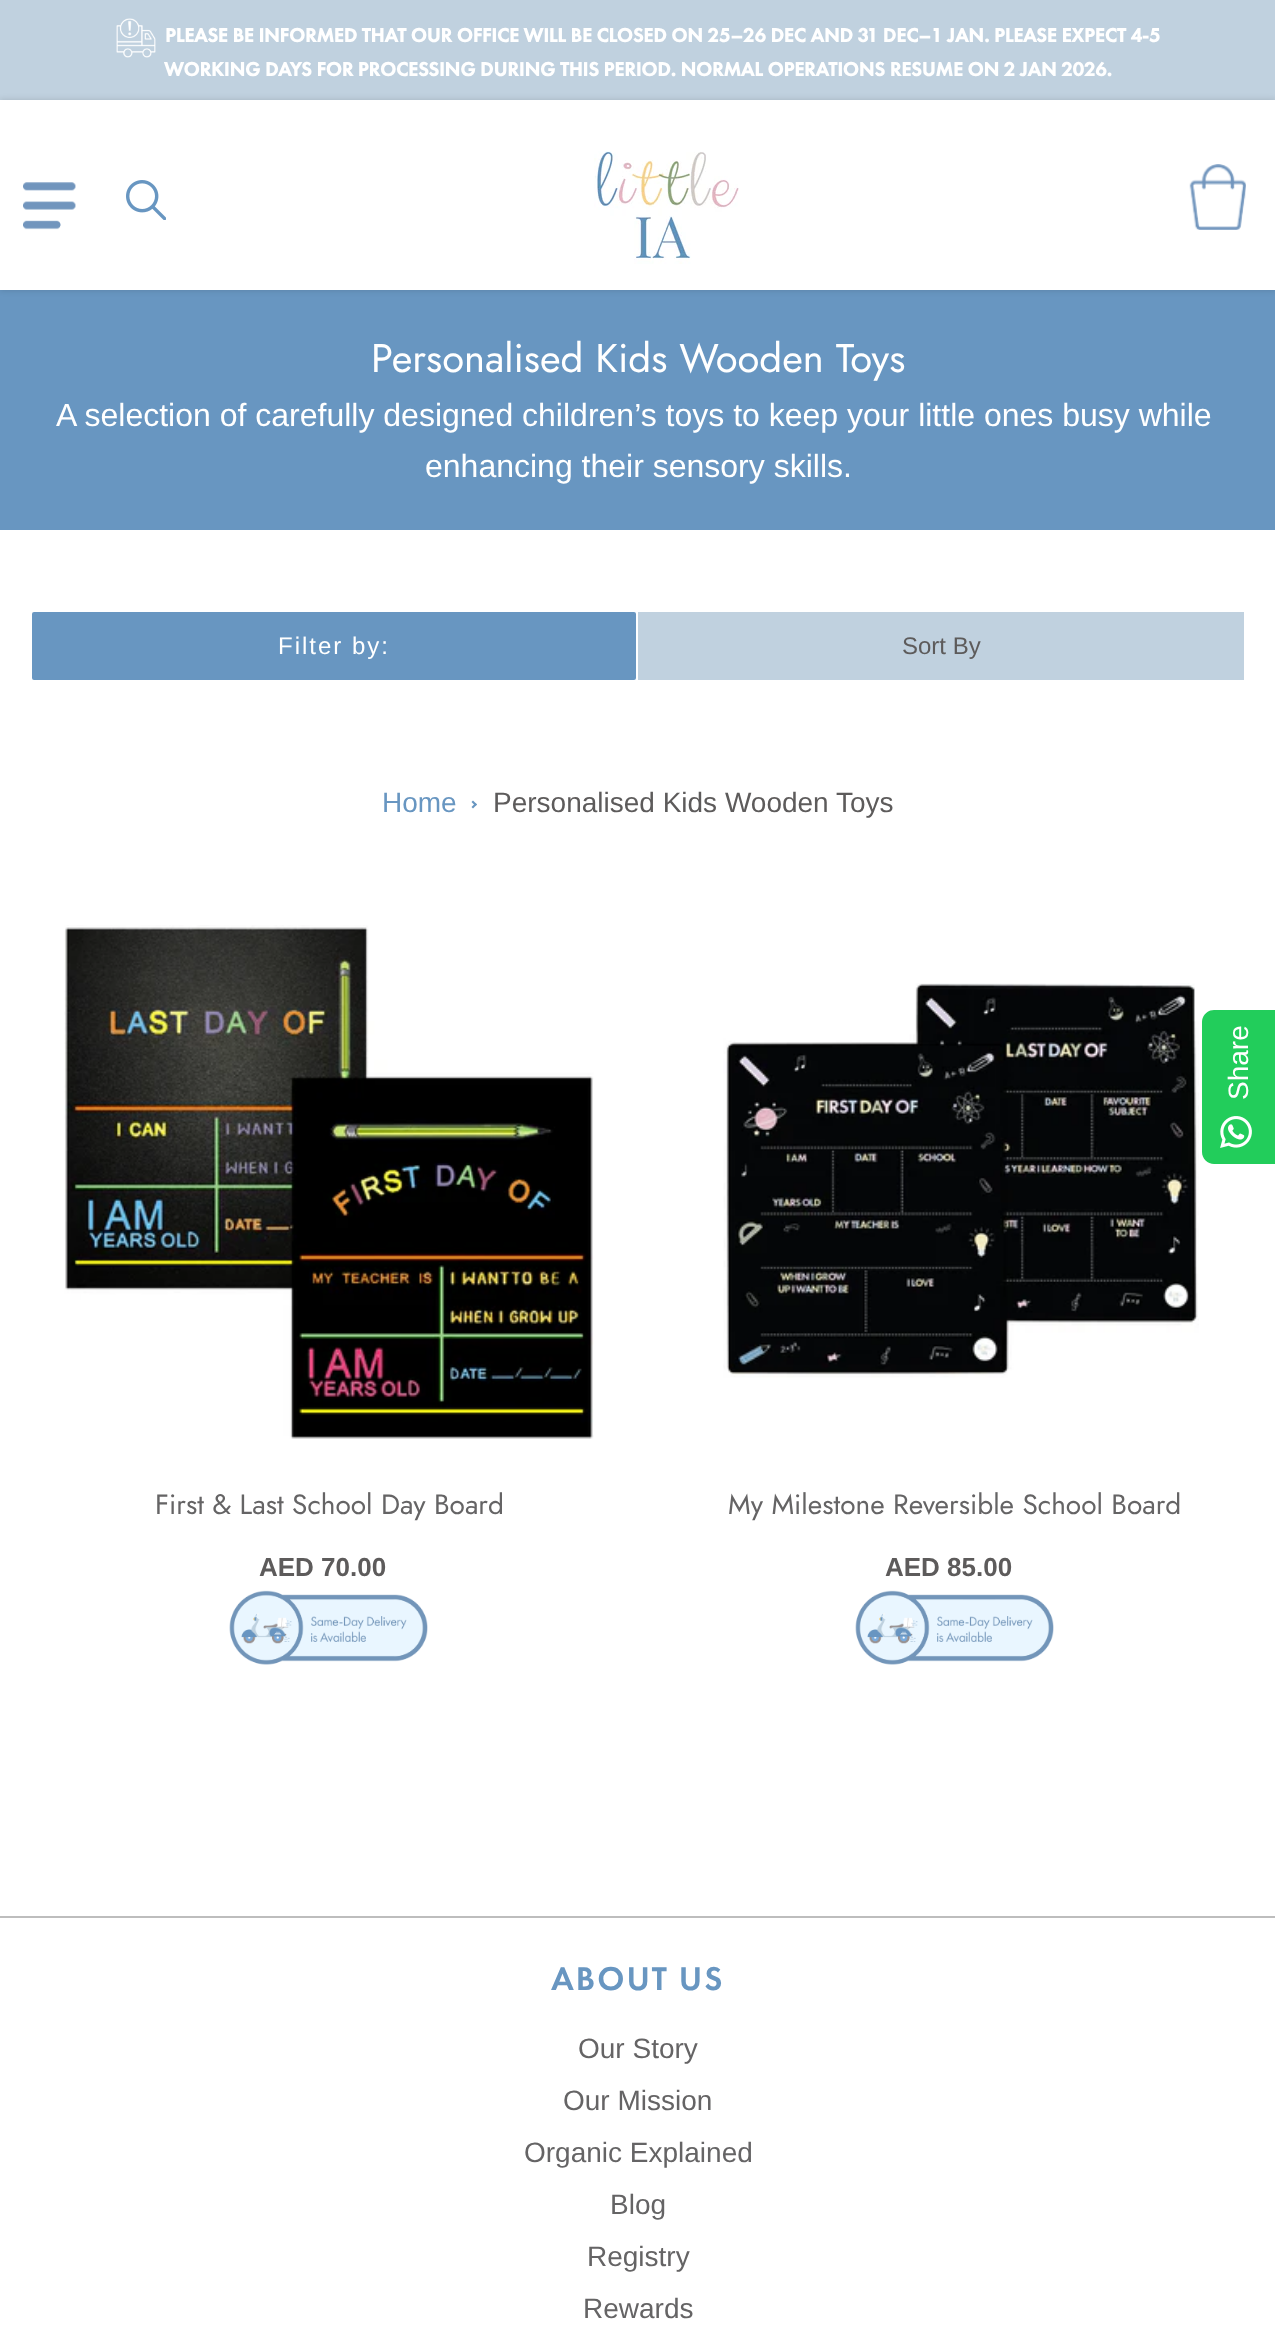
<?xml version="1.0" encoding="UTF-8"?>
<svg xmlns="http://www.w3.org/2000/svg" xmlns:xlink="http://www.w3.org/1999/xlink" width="1275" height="2328">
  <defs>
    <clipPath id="clip1"><path d="M 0 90 h 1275 v 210 h -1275 z m 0 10 h 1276 v 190 h -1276 z" clip-rule="evenodd" /></clipPath>
  </defs>
  <rect width="100%" height="100%" fill="#ffffff" />
  <rect width="1275" height="100" fill="#c0d1df" />
  <image x="116" y="18" width="40" height="40" xlink:href="image1.png" />
  <rect y="290" width="1275" height="240" fill="#6896c1" />
  <g clip-path="url(#clip1)">
    <rect y="100" width="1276" height="190" fill="#000000" fill-opacity="0.15" filter="blur(3px)" />
  </g>
  <image x="23" y="182" width="53" height="48" xlink:href="image2.png" />
  <image x="126" y="180" width="40" height="40" xlink:href="image3.png" />
  <image x="594" y="151" width="145" height="113" xlink:href="image4.png" />
  <image x="1189" y="164" width="57" height="66" xlink:href="image5.png" />
  <rect x="31" y="611" width="606" height="70" rx="3" fill="#6896c1" stroke="#ffffff" stroke-width="2" />
  <rect x="638" y="612" width="606" height="68" fill="#c0d1df" />
  <path d="M 473 800.5 l 4 4 l -1.5 1.5 l -4 -4 z" fill="#6896c1" />
  <path d="M 475.5 803 l 1.5 1.5 l -4 4 l -1.5 -1.5 z" fill="#6896c1" />
  <image x="64" y="925" width="530" height="514" xlink:href="image6.png" />
  <image x="229" y="1590" width="199" height="75" xlink:href="image7.png" />
  <image x="723" y="983" width="476" height="395" xlink:href="image8.png" />
  <image x="855" y="1590" width="199" height="75" xlink:href="image9.png" />
  <rect y="1916" width="1275" height="2" fill="#bdbdbd" />
  <path d="M 1214 1010 h 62 v 154 h -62 c -6.5 0 -12 -5.5 -12 -12 v -130 c 0 -6.5 5.5 -12 12 -12 z" fill="#22cd5b" />
  <image x="1220" y="1116" width="32" height="32" xlink:href="image10.png" />
  <text x="165" y="42" style="font-family: Futura PT; font-size: 20px; font-weight: bold; fill: #ffffff">PLEASE BE INFORMED THAT OUR OFFICE WILL BE CLOSED ON 25–26 DEC AND 31 DEC–1 JAN. PLEASE EXPECT 4-5</text>
  <text x="164" y="76" style="font-family: Futura PT; font-size: 20px; font-weight: bold; fill: #ffffff">WORKING DAYS FOR PROCESSING DURING THIS PERIOD. NORMAL OPERATIONS RESUME ON 2 JAN 2026.</text>
  <text x="371" y="372" style="font-family: Jost; font-size: 40px; fill: #ffffff">Personalised Kids Wooden Toys</text>
  <text x="56" y="426" style="font-family: Liberation Sans; font-size: 32px; fill: #ffffff">A selection of carefully designed children’s toys to keep your little ones busy while</text>
  <text x="425" y="477" style="font-family: Liberation Sans; font-size: 32px; fill: #ffffff">enhancing their sensory skills.</text>
  <text x="278" y="654" style="font-family: Liberation Sans; font-size: 24px; letter-spacing: 2px; fill: #ffffff">Filter by:</text>
  <text x="902" y="654" style="font-family: Liberation Sans; font-size: 24px; fill: #5d5b5b">Sort By</text>
  <text x="382" y="812" style="font-family: Liberation Sans; font-size: 28px; fill: #6896c1">Home</text>
  <text x="493" y="812" style="font-family: Liberation Sans; font-size: 28px; fill: #5d5b5b">Personalised Kids Wooden Toys</text>
  <text x="155" y="1514" style="font-family: Jost; font-size: 28px; fill: #656465">First &amp; Last School Day Board</text>
  <text x="259" y="1576" style="font-family: Liberation Sans; font-size: 26px; font-weight: bold; fill: #5d5b5b">AED 70.00</text>
  <text x="728" y="1514" style="font-family: Jost; font-size: 28px; fill: #656465">My Milestone Reversible School Board</text>
  <text x="885" y="1576" style="font-family: Liberation Sans; font-size: 26px; font-weight: bold; fill: #5d5b5b">AED 85.00</text>
  <text x="551" y="1990" style="font-family: Futura PT; font-size: 34px; font-weight: 500; letter-spacing: 2px; fill: #6896c1">ABOUT US</text>
  <text x="578" y="2058" style="font-family: Liberation Sans; font-size: 28px; fill: #656465">Our Story</text>
  <text x="563" y="2110" style="font-family: Liberation Sans; font-size: 28px; fill: #656465">Our Mission</text>
  <text x="524" y="2162" style="font-family: Liberation Sans; font-size: 28px; fill: #656465">Organic Explained</text>
  <text x="610" y="2214" style="font-family: Liberation Sans; font-size: 28px; fill: #656465">Blog</text>
  <text x="587" y="2266" style="font-family: Liberation Sans; font-size: 28px; fill: #656465">Registry</text>
  <text x="583" y="2318" style="font-family: Liberation Sans; font-size: 28px; fill: #656465">Rewards</text>
  <text x="1248" y="1100" transform="rotate(-90 1248 1100)" style="font-family: Liberation Sans; font-size: 28px; fill: #ffffff">Share</text>
</svg>
